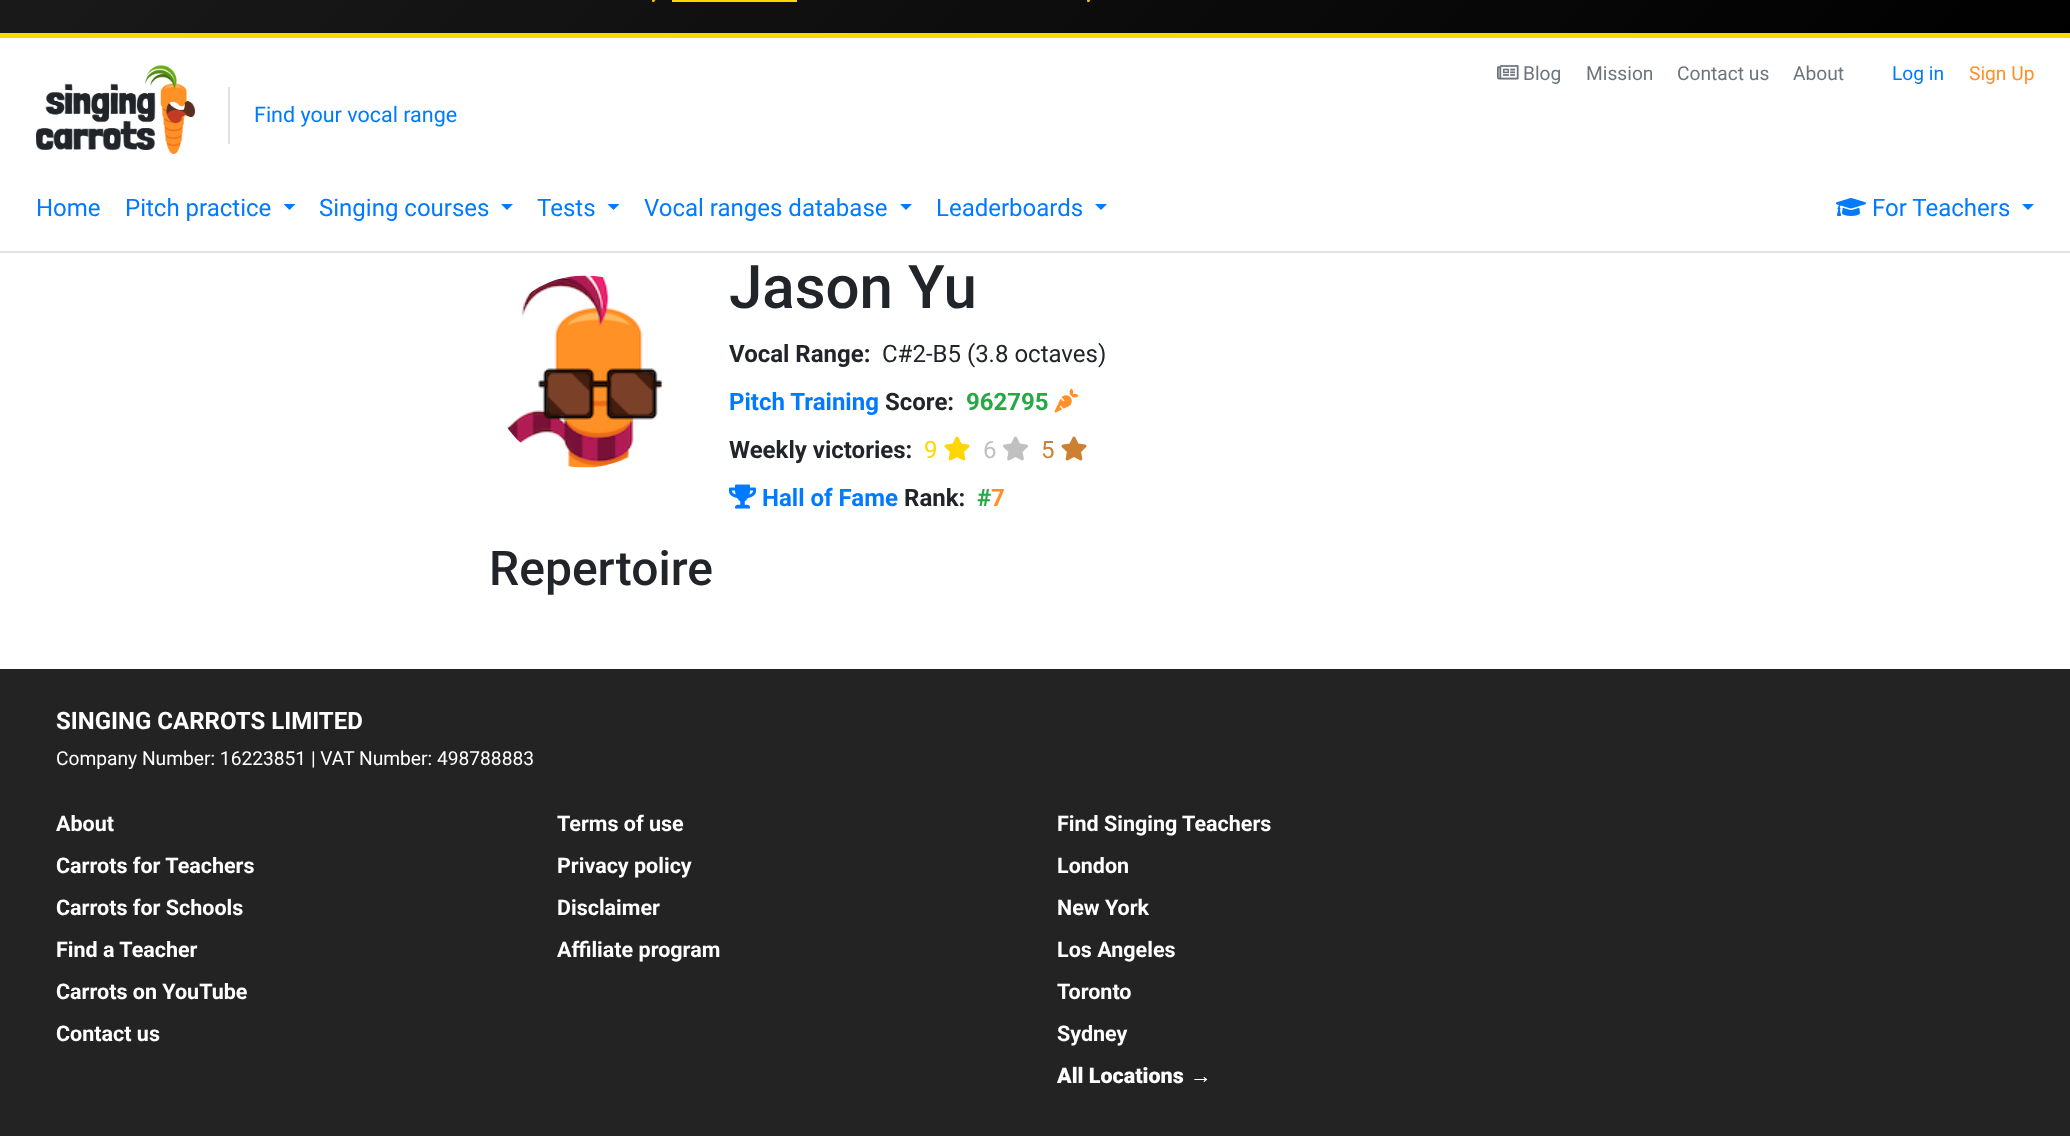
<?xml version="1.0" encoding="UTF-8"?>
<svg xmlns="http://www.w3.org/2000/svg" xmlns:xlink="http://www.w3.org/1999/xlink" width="2070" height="1136">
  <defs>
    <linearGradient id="g1" gradientUnits="userSpaceOnUse" x1="496" y1="-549" x2="1574" y2="529"><stop offset="0" stop-color="#1a1a1a" /><stop offset="1" stop-color="#000000" /></linearGradient>
  </defs>
  <rect width="100%" height="100%" fill="#ffffff" />
  <rect width="2070" height="33" fill="url(#g1)" />
  <rect y="33" width="2070" height="5" fill="#ffd700" />
  <image x="652" y="0" width="4" height="3" xlink:href="image1.png" />
  <rect x="672" width="125" height="2" fill="#ffd700" />
  <image x="1087" y="0" width="4" height="3" xlink:href="image2.png" />
  <rect y="251" width="2070" height="2" fill="#e2e2e2" />
  <image x="36" y="65" width="159" height="89" xlink:href="image3.png" />
  <image x="1497" y="65" width="22" height="15" xlink:href="image4.png" />
  <path d="M 283.5 204 h 12 l -6 6 z" fill="#007bff" />
  <path d="M 501 204 h 12 l -6 6 z" fill="#007bff" />
  <path d="M 607.5 204 h 12 l -6 6 z" fill="#007bff" />
  <path d="M 900 204 h 12 l -6 6 z" fill="#007bff" />
  <path d="M 1095 204 h 12 l -6 6 z" fill="#007bff" />
  <image x="1836" y="198" width="30" height="18" xlink:href="image5.png" />
  <path d="M 2022 204 h 12 l -6 6 z" fill="#007bff" />
  <rect x="228" y="87" width="2" height="57" fill="#e2e2e2" />
  <image x="507" y="275" width="156" height="193" xlink:href="image6.png" />
  <image x="1054" y="388" width="25" height="25" xlink:href="image7.png" />
  <image x="944" y="436" width="26" height="25" xlink:href="image8.png" />
  <image x="1003" y="436" width="25" height="25" xlink:href="image9.png" />
  <image x="1061" y="436" width="26" height="25" xlink:href="image10.png" />
  <image x="729" y="484" width="27" height="25" xlink:href="image11.png" />
  <rect y="669" width="2070" height="467" fill="#232323" />
  <text x="1523" y="80" style="font-family: Roboto; font-size: 19.2px; fill: #6c757d">Blog</text>
  <text x="1586" y="80" style="font-family: Roboto; font-size: 19.2px; fill: #6c757d">Mission</text>
  <text x="1677" y="80" style="font-family: Roboto; font-size: 19.2px; fill: #6c757d">Contact us</text>
  <text x="1793" y="80" style="font-family: Roboto; font-size: 19.2px; fill: #6c757d">About</text>
  <text x="1892" y="80" style="font-family: Roboto; font-size: 19.2px; fill: #007bff">Log in</text>
  <text x="1969" y="80" style="font-family: Roboto; font-size: 19.2px; fill: #ff9126">Sign Up</text>
  <text x="36" y="216" style="font-family: Roboto; font-size: 24px; fill: #007bff">Home</text>
  <text x="125" y="216" style="font-family: Roboto; font-size: 24px; fill: #007bff">Pitch practice</text>
  <text x="319" y="216" style="font-family: Roboto; font-size: 24px; fill: #007bff">Singing courses</text>
  <text x="537" y="216" style="font-family: Roboto; font-size: 24px; fill: #007bff">Tests</text>
  <text x="644" y="216" style="font-family: Roboto; font-size: 24px; fill: #007bff">Vocal ranges database</text>
  <text x="936" y="216" style="font-family: Roboto; font-size: 24px; fill: #007bff">Leaderboards</text>
  <text x="1872" y="216" style="font-family: Roboto; font-size: 24px; fill: #007bff">For Teachers</text>
  <text x="254" y="122" style="font-family: Roboto; font-size: 21.5px; fill: #007bff">Find your vocal range</text>
  <text x="729" y="308" style="font-family: Roboto; font-size: 60px; font-weight: 500; fill: #212529">Jason Yu</text>
  <text x="729" y="362" style="font-family: Roboto; font-size: 24px; font-weight: bold; fill: #212529">Vocal Range:</text>
  <text x="882" y="362" style="font-family: Roboto; font-size: 24px; fill: #212529">C#2-B5 (3.8 octaves)</text>
  <text x="729" y="410" style="font-family: Roboto; font-size: 24px; font-weight: bold; fill: #007bff">Pitch Training</text>
  <text x="885" y="410" style="font-family: Roboto; font-size: 24px; font-weight: bold; fill: #212529">Score:</text>
  <text x="966" y="410" style="font-family: Roboto; font-size: 24px; font-weight: bold; fill: #28a745">962795</text>
  <text x="729" y="458" style="font-family: Roboto; font-size: 24px; font-weight: bold; fill: #212529">Weekly victories:</text>
  <text x="924" y="458" style="font-family: Roboto; font-size: 24px; fill: #ffd700">9</text>
  <text x="983" y="458" style="font-family: Roboto; font-size: 24px; fill: #c0c0c0">6</text>
  <text x="1041" y="458" style="font-family: Roboto; font-size: 24px; fill: #cd7f32">5</text>
  <text x="762" y="506" style="font-family: Roboto; font-size: 24px; font-weight: bold; fill: #007bff">Hall of Fame</text>
  <text x="904" y="506" style="font-family: Roboto; font-size: 24px; font-weight: bold; fill: #212529">Rank:</text>
  <text x="977" y="506" style="font-family: Roboto; font-size: 24px; font-weight: bold; fill: #28a745">#</text>
  <text x="991" y="506" style="font-family: Roboto; font-size: 24px; font-weight: bold; fill: #ff9126">7</text>
  <text x="489" y="585" style="font-family: Roboto; font-size: 48px; font-weight: 500; fill: #212529">Repertoire</text>
  <text x="56" y="729" style="font-family: Roboto; font-size: 24px; font-weight: bold; fill: #ffffff">SINGING CARROTS LIMITED</text>
  <text x="56" y="765" style="font-family: Roboto; font-size: 19.2px; fill: #ffffff">Company Number: 16223851 | VAT Number: 498788883</text>
  <text x="56" y="831" style="font-family: Roboto; font-size: 21.5px; font-weight: bold; fill: #ffffff">About</text>
  <text x="56" y="873" style="font-family: Roboto; font-size: 21.5px; font-weight: bold; fill: #ffffff">Carrots for Teachers</text>
  <text x="56" y="915" style="font-family: Roboto; font-size: 21.5px; font-weight: bold; fill: #ffffff">Carrots for Schools</text>
  <text x="56" y="957" style="font-family: Roboto; font-size: 21.5px; font-weight: bold; fill: #ffffff">Find a Teacher</text>
  <text x="56" y="999" style="font-family: Roboto; font-size: 21.5px; font-weight: bold; fill: #ffffff">Carrots on YouTube</text>
  <text x="56" y="1041" style="font-family: Roboto; font-size: 21.5px; font-weight: bold; fill: #ffffff">Contact us</text>
  <text x="557" y="831" style="font-family: Roboto; font-size: 21.5px; font-weight: bold; fill: #ffffff">Terms of use</text>
  <text x="557" y="873" style="font-family: Roboto; font-size: 21.5px; font-weight: bold; fill: #ffffff">Privacy policy</text>
  <text x="557" y="915" style="font-family: Roboto; font-size: 21.5px; font-weight: bold; fill: #ffffff">Disclaimer</text>
  <text x="557" y="957" style="font-family: Roboto; font-size: 21.5px; font-weight: bold; fill: #ffffff">Affiliate program</text>
  <text x="1057" y="831" style="font-family: Roboto; font-size: 21.5px; font-weight: bold; fill: #ffffff">Find Singing Teachers</text>
  <text x="1057" y="873" style="font-family: Roboto; font-size: 21.5px; font-weight: bold; fill: #ffffff">London</text>
  <text x="1057" y="915" style="font-family: Roboto; font-size: 21.5px; font-weight: bold; fill: #ffffff">New York</text>
  <text x="1057" y="957" style="font-family: Roboto; font-size: 21.5px; font-weight: bold; fill: #ffffff">Los Angeles</text>
  <text x="1057" y="999" style="font-family: Roboto; font-size: 21.5px; font-weight: bold; fill: #ffffff">Toronto</text>
  <text x="1057" y="1041" style="font-family: Roboto; font-size: 21.5px; font-weight: bold; fill: #ffffff">Sydney</text>
  <text x="1057" y="1083" style="font-family: Roboto; font-size: 21.5px; font-weight: 900; fill: #ffffff">All Locations</text>
  <text x="1190" y="1083" style="font-family: Liberation Sans; font-size: 21.5px; font-weight: bold; fill: #ffffff">→</text>
</svg>
